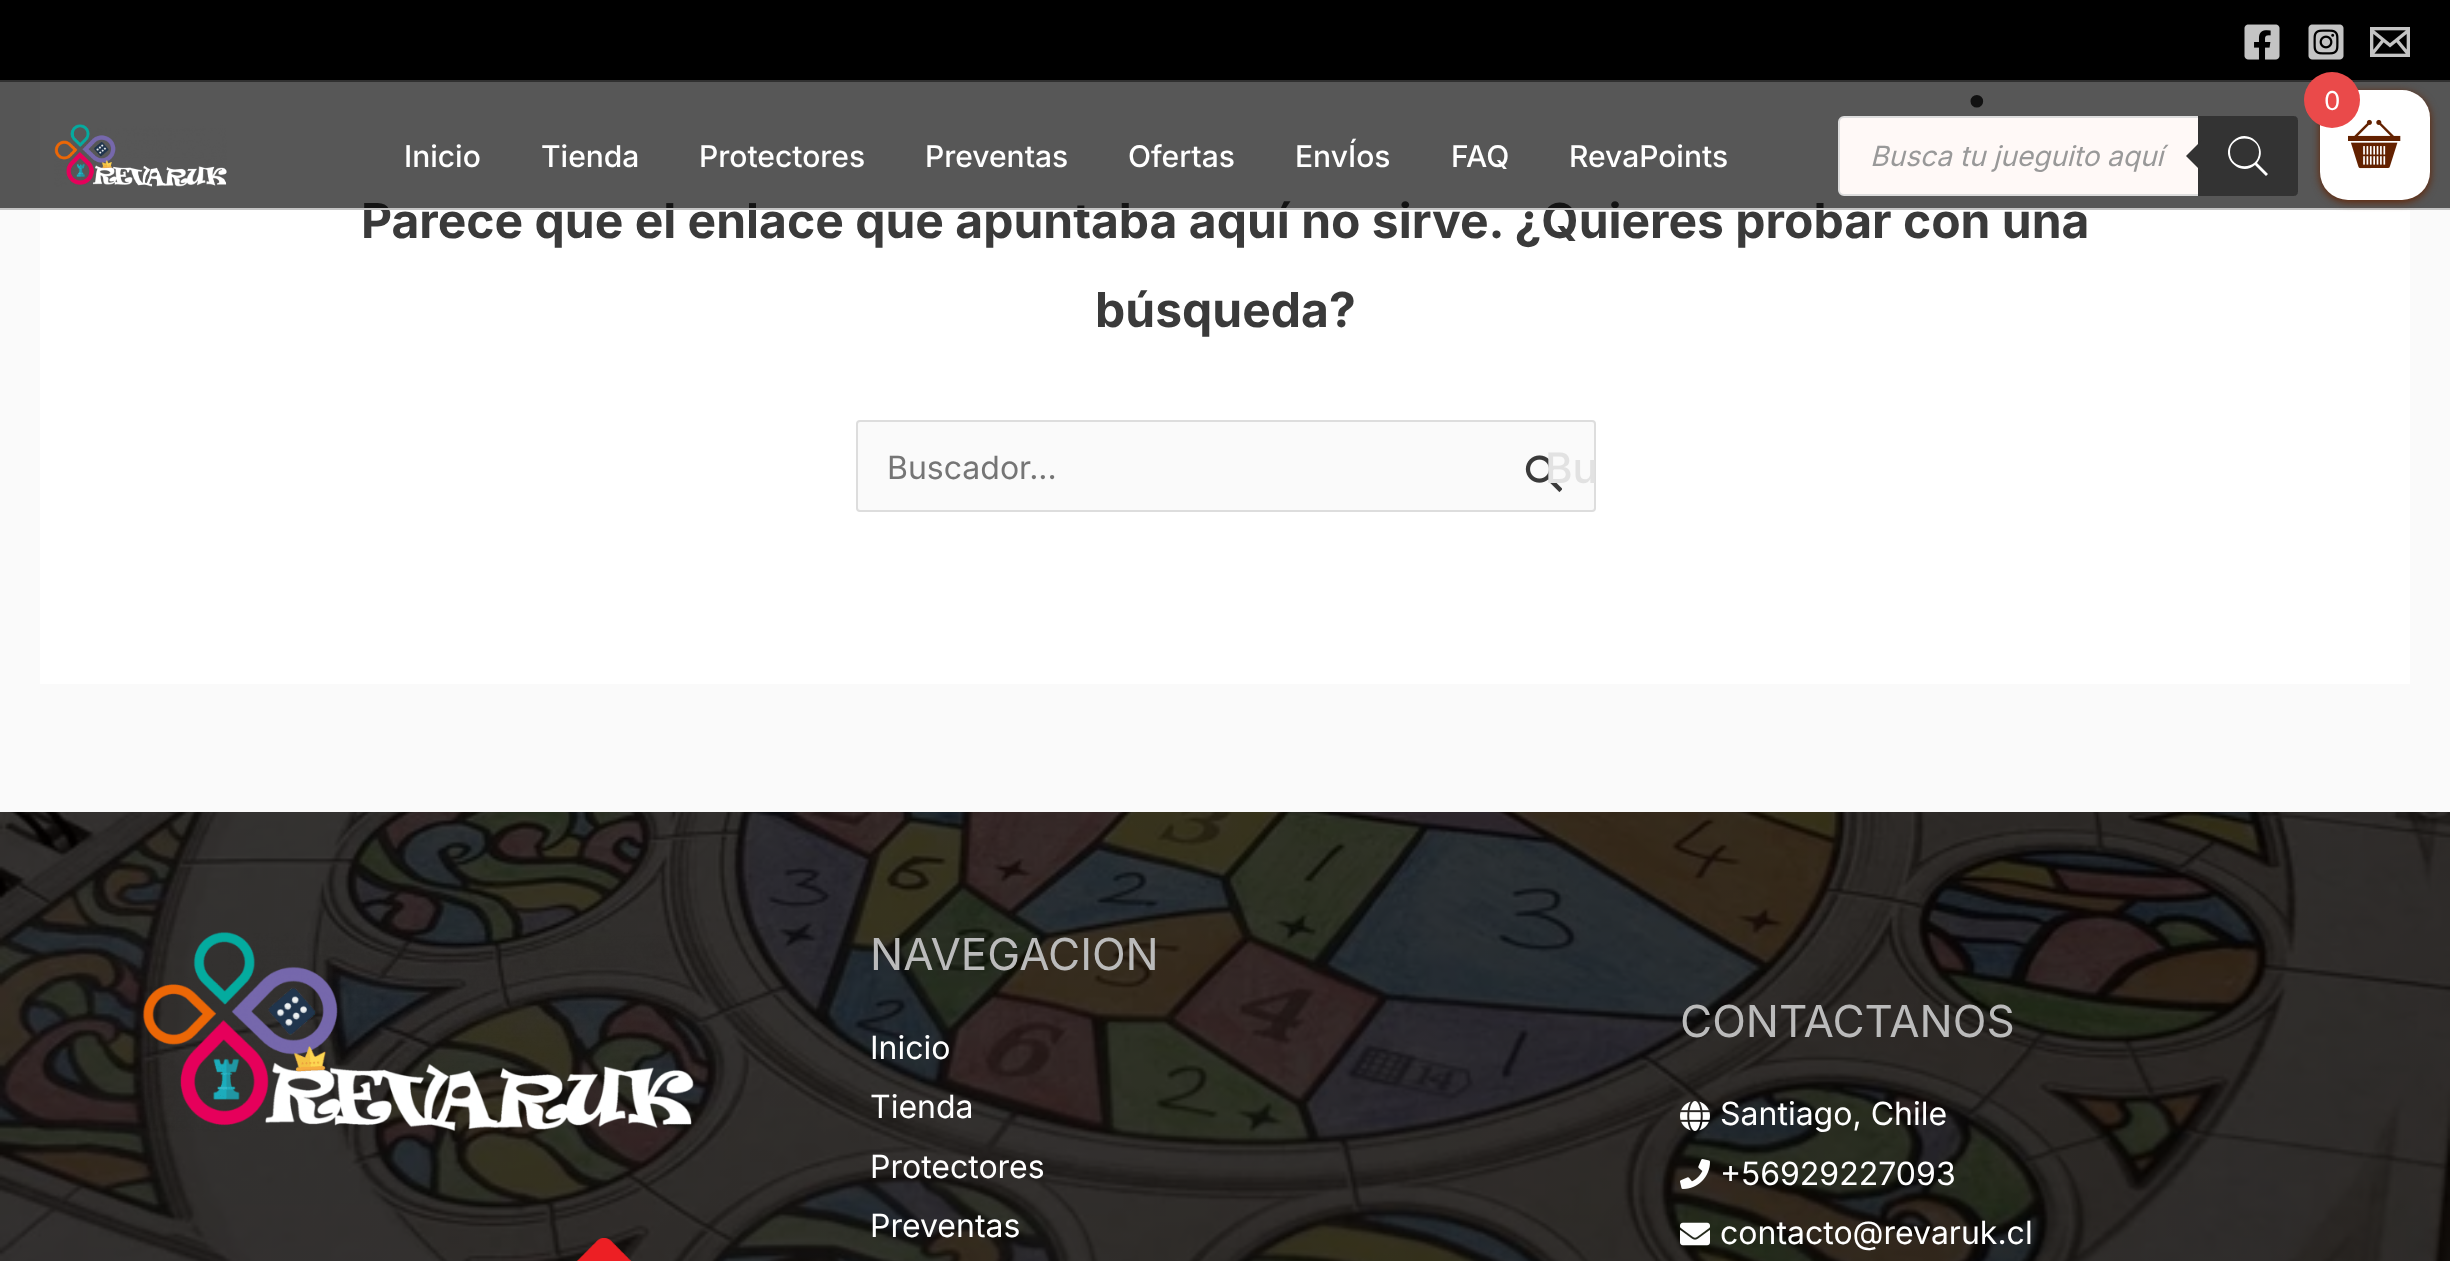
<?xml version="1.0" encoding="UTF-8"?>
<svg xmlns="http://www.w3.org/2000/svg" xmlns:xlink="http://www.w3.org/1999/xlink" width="2450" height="1261">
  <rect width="100%" height="100%" fill="#fafafa" />
  <rect x="40" y="82" width="2370" height="602" fill="#ffffff" />
  <rect x="857" y="421" width="738" height="90" rx="3" fill="#fafafa" stroke="#dddddd" stroke-width="2" />
  <image x="1525" y="455" width="37" height="38" xlink:href="image1.png" />
  <rect width="2450" height="80" fill="#000000" />
  <rect y="80" width="2450" height="2" fill="#303030" />
  <image x="2244" y="24" width="36" height="36" xlink:href="image2.png" />
  <image x="2308" y="24" width="36" height="36" xlink:href="image3.png" />
  <image x="2370" y="27" width="40" height="30" xlink:href="image4.png" />
  <image x="0" y="812" width="2450" height="449" xlink:href="image6.png" />
  <image x="142" y="932" width="552" height="200" xlink:href="image7.png" />
  <image x="576" y="1238" width="56" height="23" xlink:href="image8.png" />
  <image x="1680" y="1101" width="30" height="30" xlink:href="image9.png" />
  <image x="1680" y="1159" width="30" height="30" xlink:href="image10.png" />
  <image x="1680" y="1222" width="30" height="24" xlink:href="image11.png" />
  <text x="1963" y="107" style="font-family: Inter; font-size: 96px; fill: #333333">.</text>
  <text x="361" y="238" style="font-family: Inter; font-size: 48px; font-weight: bold; fill: #3a3a3a">Parece que el enlace que apuntaba aquí no sirve. ¿Quieres probar con una</text>
  <text x="1095" y="327" style="font-family: Inter; font-size: 48px; font-weight: bold; fill: #3a3a3a">búsqueda?</text>
  <text x="887" y="479" style="font-family: Inter; font-size: 32px; fill: #757575">Buscador...</text>
  <text x="1545" y="483" style="font-family: Inter; font-size: 42px; font-weight: 500; fill: #e2e2e2">Bu</text>
  <rect y="82" width="2450" height="126" fill="#000000" fill-opacity="0.66" />
  <rect y="208" width="2450" height="2" fill="#c4c4c4" />
  <image x="54" y="124" width="173" height="63" xlink:href="image5.png" />
  <text x="404" y="167" style="font-family: Inter; font-size: 30px; font-weight: 500; fill: #ffffff">Inicio</text>
  <text x="541" y="167" style="font-family: Inter; font-size: 30px; font-weight: 500; fill: #ffffff">Tienda</text>
  <text x="699" y="167" style="font-family: Inter; font-size: 30px; font-weight: 500; fill: #ffffff">Protectores</text>
  <text x="925" y="167" style="font-family: Inter; font-size: 30px; font-weight: 500; fill: #ffffff">Preventas</text>
  <text x="1128" y="167" style="font-family: Inter; font-size: 30px; font-weight: 500; fill: #ffffff">Ofertas</text>
  <text x="1295" y="167" style="font-family: Inter; font-size: 30px; font-weight: 500; fill: #ffffff">EnvÍos</text>
  <text x="1451" y="167" style="font-family: Inter; font-size: 30px; font-weight: 500; fill: #ffffff">FAQ</text>
  <text x="1569" y="167" style="font-family: Inter; font-size: 30px; font-weight: 500; fill: #ffffff">RevaPoints</text>
  <rect x="1839" y="117" width="458" height="78" rx="5" fill="#fff9f7" stroke="#dddddd" stroke-width="2" />
  <text x="1870" y="166" style="font-family: Inter; font-size: 28px; font-style: italic; fill: #999999">Busca tu jueguito aquí</text>
  <path d="M 2198 116 h 96 c 2 0 4 2 4 4 v 72 c 0 2 -2 4 -4 4 h -96 z" fill="#333333" />
  <path d="M 2202 140 v 32 l -16 -16 z" fill="#333333" />
  <path d="M 2268 174 l -11 -11 c 13 -15 -9 -37 -24 -22 c -15 15 7 37 22 24 l 11 11 z m -38 -22 c 0 -18 29 -18 29 0 c 0 19 -29 19 -29 0 z" fill="#ffffff" />
  <text x="870" y="970" style="font-family: Inter; font-size: 44px; fill: #bbbbbb">NAVEGACION</text>
  <text x="870" y="1059" style="font-family: Inter; font-size: 32px; fill: #ffffff">Inicio</text>
  <text x="870" y="1118" style="font-family: Inter; font-size: 32px; fill: #ffffff">Tienda</text>
  <text x="870" y="1178" style="font-family: Inter; font-size: 32px; fill: #ffffff">Protectores</text>
  <text x="870" y="1237" style="font-family: Inter; font-size: 32px; fill: #ffffff">Preventas</text>
  <text x="1680" y="1037" style="font-family: Inter; font-size: 44px; fill: #bbbbbb">CONTACTANOS</text>
  <text x="1720" y="1125" style="font-family: Inter; font-size: 32px; fill: #ffffff">Santiago, Chile</text>
  <text x="1720" y="1185" style="font-family: Inter; font-size: 32px; fill: #ffffff">+56929227093</text>
  <text x="1720" y="1244" style="font-family: Inter; font-size: 32px; fill: #ffffff">contacto@revaruk.cl</text>
  <rect x="2320" y="92" width="110" height="110" rx="28" fill="#632100" filter="blur(4px)" />
  <rect x="2320" y="90" width="110" height="110" rx="28" fill="#ffffff" />
  <image x="2348" y="119" width="53" height="50" xlink:href="image12.png" />
  <circle cx="2332" cy="100" r="28" fill="#ea4a4a" />
  <text x="2324" y="110" style="font-family: Inter; font-size: 26px; fill: #ffffff">0</text>
</svg>
